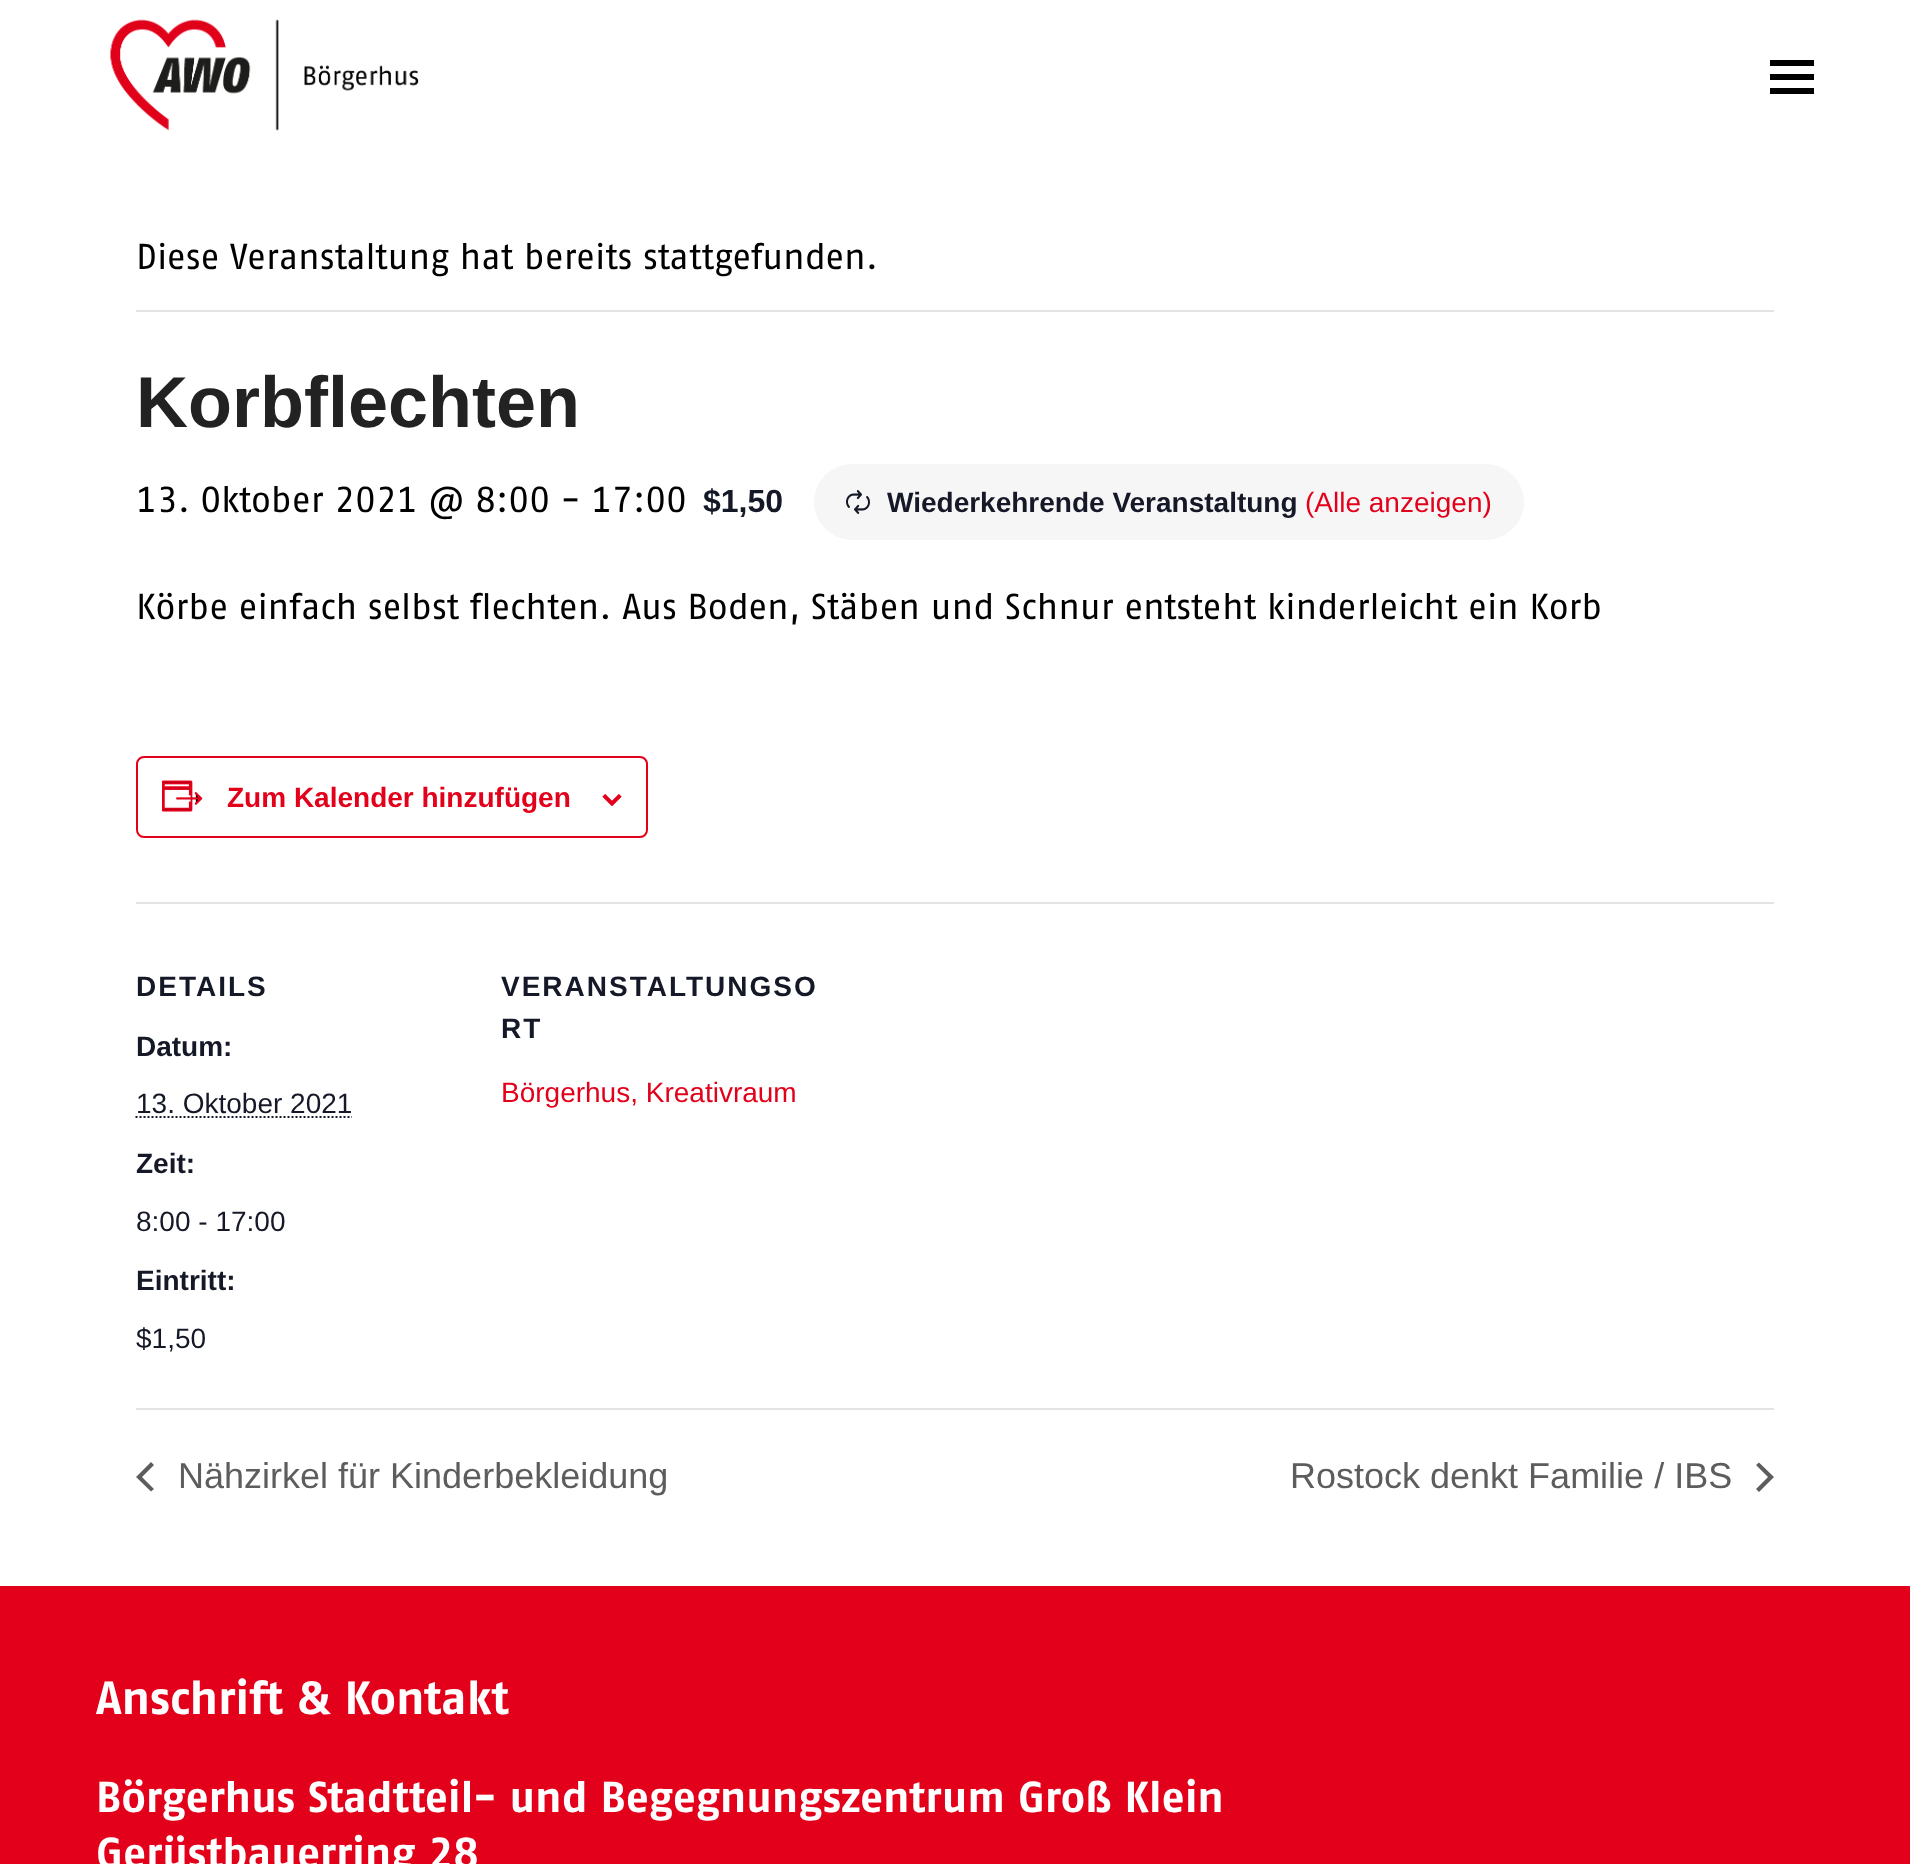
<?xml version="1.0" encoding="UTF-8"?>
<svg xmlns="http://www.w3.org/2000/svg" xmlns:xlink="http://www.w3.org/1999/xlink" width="1910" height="1864">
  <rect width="100%" height="100%" fill="#ffffff" />
  <image x="110" y="19" width="309" height="112" xlink:href="image1.png" />
  <rect x="1770" y="74" width="44" height="6" fill="#000000" />
  <rect x="1770" y="60" width="44" height="6" fill="#000000" />
  <rect x="1770" y="88" width="44" height="6" fill="#000000" />
  <rect x="136" y="310" width="1638" height="2" fill="#e4e4e4" />
  <rect x="814" y="464" width="710" height="76" rx="38" fill="#f7f6f6" />
  <image x="846" y="490" width="24" height="24" xlink:href="image2.png" />
  <rect x="137" y="757" width="510" height="80" rx="7" fill="none" stroke="#e2001a" stroke-width="2" />
  <image x="162" y="780" width="41" height="32" xlink:href="image3.png" />
  <image x="602" y="794" width="20" height="12" xlink:href="image4.png" />
  <rect x="136" y="902" width="1638" height="2" fill="#e4e4e4" />
  <path d="M 135.5 1117 h 216.5" fill="none" stroke="#141827" stroke-width="2" stroke-dasharray="2 2" />
  <rect x="136" y="1408" width="1638" height="2" fill="#e4e4e4" />
  <path d="M 154 1489 l -3 2.5 l -15 -14.5 l 15 -15 l 3 3 l -12 12 z" fill="#5d5d5d" />
  <path d="M 1756 1465 l 3 -2.5 l 15 14.5 l -15 15 l -3 -3 l 12 -12 z" fill="#5d5d5d" />
  <rect y="1586" width="1910" height="278" fill="#e2001a" />
  <text x="136" y="269" style="font-family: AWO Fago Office; font-size: 36px; fill: #000000">Diese Veranstaltung hat bereits stattgefunden.</text>
  <text x="136" y="427" style="font-family: Liberation Sans; font-size: 72px; font-weight: bold; fill: #222222">Korbflechten</text>
  <text x="136" y="512" style="font-family: AWO Fago Office; font-size: 36px; fill: #000000">13. Oktober 2021 @ 8:00 - 17:00</text>
  <text x="703" y="512" style="font-family: Liberation Sans; font-size: 32px; font-weight: bold; fill: #141827">$1,50</text>
  <text x="887" y="512" style="font-family: Liberation Sans; font-size: 28px; font-weight: bold; fill: #141827">Wiederkehrende Veranstaltung</text>
  <text x="1305" y="512" style="font-family: Liberation Sans; font-size: 28px; fill: #e2001a">(Alle anzeigen)</text>
  <text x="136" y="619" style="font-family: AWO Fago Office; font-size: 36px; fill: #000000">Körbe einfach selbst flechten. Aus Boden, Stäben und Schnur entsteht kinderleicht ein Korb</text>
  <text x="227" y="807" style="font-family: Liberation Sans; font-size: 28px; font-weight: bold; fill: #e2001a">Zum Kalender hinzufügen</text>
  <text x="136" y="996" style="font-family: Liberation Sans; font-size: 28px; font-weight: bold; letter-spacing: 2px; fill: #141827">DETAILS</text>
  <text x="136" y="1056" style="font-family: Liberation Sans; font-size: 28px; font-weight: bold; fill: #141827">Datum:</text>
  <text x="136" y="1113" style="font-family: Liberation Sans; font-size: 28px; fill: #141827">13. Oktober 2021</text>
  <text x="136" y="1173" style="font-family: Liberation Sans; font-size: 28px; font-weight: bold; fill: #141827">Zeit:</text>
  <text x="136" y="1231" style="font-family: Liberation Sans; font-size: 28px; fill: #141827">8:00 - 17:00</text>
  <text x="136" y="1290" style="font-family: Liberation Sans; font-size: 28px; font-weight: bold; fill: #141827">Eintritt:</text>
  <text x="136" y="1348" style="font-family: Liberation Sans; font-size: 28px; fill: #141827">$1,50</text>
  <text x="501" y="996" style="font-family: Liberation Sans; font-size: 28px; font-weight: bold; letter-spacing: 2px; fill: #141827">VERANSTALTUNGSO</text>
  <text x="501" y="1038" style="font-family: Liberation Sans; font-size: 28px; font-weight: bold; letter-spacing: 2px; fill: #141827">RT</text>
  <text x="501" y="1102" style="font-family: Liberation Sans; font-size: 28px; fill: #e2001a">Börgerhus, Kreativraum</text>
  <text x="178" y="1488" style="font-family: Liberation Sans; font-size: 36px; fill: #5d5d5d">Nähzirkel für Kinderbekleidung</text>
  <text x="1290" y="1488" style="font-family: Liberation Sans; font-size: 36px; fill: #5d5d5d">Rostock denkt Familie / IBS</text>
  <text x="96" y="1714" style="font-family: AWO Fago Office; font-size: 46.5px; font-weight: bold; fill: #ffffff">Anschrift &amp; Kontakt</text>
  <text x="96" y="1812" style="font-family: AWO Fago Office; font-size: 43.2px; font-weight: bold; fill: #ffffff">Börgerhus Stadtteil- und Begegnungszentrum Groß Klein</text>
  <text x="96" y="1868" style="font-family: AWO Fago Office; font-size: 43.2px; font-weight: bold; fill: #ffffff">Gerüstbauerring 28</text>
</svg>
